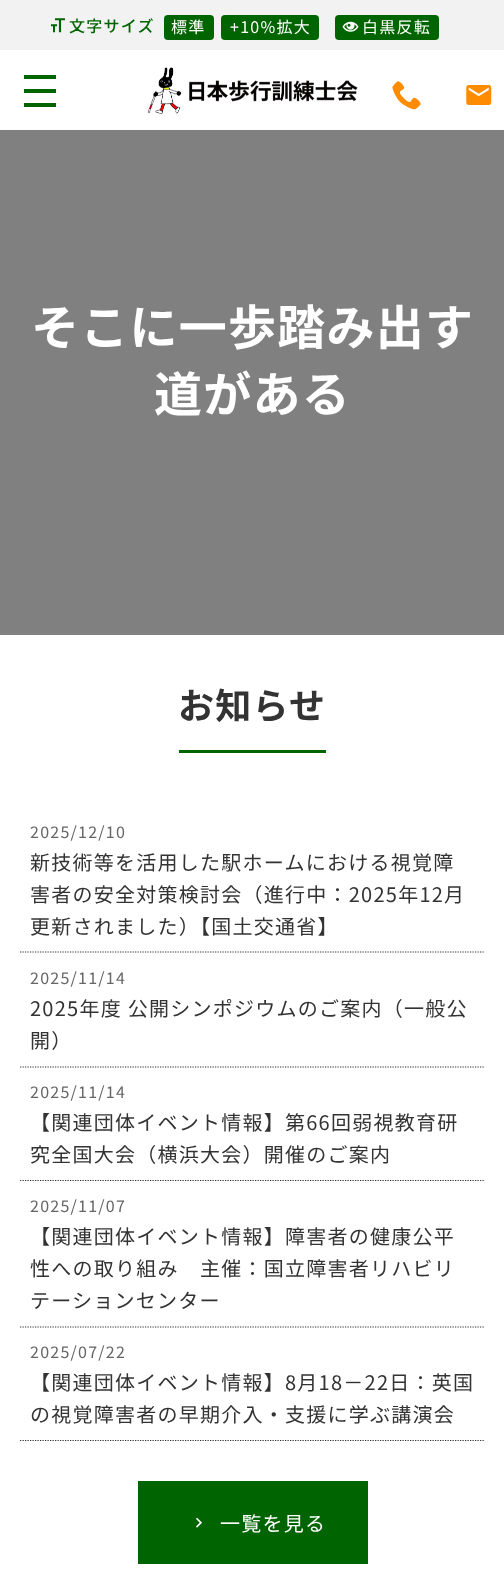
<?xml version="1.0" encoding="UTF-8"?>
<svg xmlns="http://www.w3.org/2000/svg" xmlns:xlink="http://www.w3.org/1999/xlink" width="504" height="1572">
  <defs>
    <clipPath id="clip1"><rect x="20" y="808" width="465" height="633" /></clipPath>
  </defs>
  <rect width="100%" height="100%" fill="#ffffff" />
  <rect width="504" height="50" fill="#f2f2f2" />
  <image x="51" y="18" width="14" height="15" xlink:href="image1.png" />
  <rect x="164" y="15" width="50" height="25" rx="4" fill="#006400" />
  <rect x="221" y="15" width="98" height="25" rx="4" fill="#006400" />
  <rect x="335" y="15" width="104" height="25" rx="4" fill="#006400" />
  <image x="342" y="21" width="17" height="11" xlink:href="image2.png" />
  <rect x="24" y="75" width="32" height="4" fill="#006400" />
  <rect x="24" y="89" width="32" height="4" fill="#006400" />
  <rect x="24" y="103" width="32" height="4" fill="#006400" />
  <image x="147" y="67" width="211" height="47" xlink:href="image3.png" />
  <image x="392" y="81" width="29" height="29" xlink:href="image4.png" />
  <image x="466" y="85" width="26" height="20" xlink:href="image5.png" />
  <rect y="130" width="504" height="505" fill="#808080" />
  <rect x="179" y="750" width="147" height="3" fill="#006400" />
  <path d="M 20 952 h 465" fill="none" stroke="#333333" stroke-width="1.2" stroke-dasharray="1.25 1.25" />
  <path d="M 20 1067 h 465" fill="none" stroke="#333333" stroke-width="1.2" stroke-dasharray="1.25 1.25" />
  <path d="M 20 1180.5 h 465" fill="none" stroke="#333333" stroke-width="1.2" stroke-dasharray="1.25 1.25" />
  <path d="M 20 1327 h 465" fill="none" stroke="#333333" stroke-width="1.2" stroke-dasharray="1.25 1.25" />
  <g clip-path="url(#clip1)">
    <path d="M 20 1440.5 h 465" fill="none" stroke="#333333" stroke-width="1.2" stroke-dasharray="1.25 1.25" />
  </g>
  <rect x="138" y="1481" width="230" height="83" fill="#006400" />
  <image x="196" y="1517" width="6" height="11" xlink:href="image6.png" />
  <text x="69" y="32" style="font-family: Noto Sans JP; font-size: 16px; font-weight: 500; letter-spacing: 1.25px; fill: #006400">文字サイズ</text>
  <text x="171" y="33" style="font-family: Noto Sans JP; font-size: 16px; letter-spacing: 1.25px; fill: #ffffff">標準</text>
  <text x="230" y="33" style="font-family: Noto Sans JP; font-size: 16px; letter-spacing: 1.25px; fill: #ffffff">+10%拡大</text>
  <text x="362" y="33" style="font-family: Noto Sans JP; font-size: 16px; letter-spacing: 1.25px; fill: #ffffff">白黒反転</text>
  <text x="31" y="345" style="font-family: Noto Sans JP; font-size: 48px; font-weight: bold; letter-spacing: 1.25px; fill: #ffffff">そこに一歩踏み出す</text>
  <text x="154" y="412" style="font-family: Noto Sans JP; font-size: 48px; font-weight: bold; letter-spacing: 1.25px; fill: #ffffff">道がある</text>
  <text x="178" y="719" style="font-family: Noto Sans JP; font-size: 36px; font-weight: bold; letter-spacing: 1.25px; fill: #333333">お知らせ</text>
  <text x="30" y="838" style="font-family: Noto Sans JP; font-size: 16px; letter-spacing: 1.25px; fill: #666666">2025/12/10</text>
  <text x="30" y="870" style="font-family: Noto Sans JP; font-size: 20px; letter-spacing: 1.25px; fill: #333333">新技術等を活用した駅ホームにおける視覚障</text>
  <text x="30" y="902" style="font-family: Noto Sans JP; font-size: 20px; letter-spacing: 1.25px; fill: #333333">害者の安全対策検討会（進行中：2025年12月</text>
  <text x="30" y="934" style="font-family: Noto Sans JP; font-size: 20px; letter-spacing: 1.25px; fill: #333333">更新されました）【国土交通省】</text>
  <text x="30" y="984" style="font-family: Noto Sans JP; font-size: 16px; letter-spacing: 1.25px; fill: #666666">2025/11/14</text>
  <text x="30" y="1016" style="font-family: Noto Sans JP; font-size: 20px; letter-spacing: 1.25px; fill: #333333">2025年度 公開シンポジウムのご案内（一般公</text>
  <text x="30" y="1048" style="font-family: Noto Sans JP; font-size: 20px; letter-spacing: 1.25px; fill: #333333">開）</text>
  <text x="30" y="1098" style="font-family: Noto Sans JP; font-size: 16px; letter-spacing: 1.25px; fill: #666666">2025/11/14</text>
  <text x="30" y="1130" style="font-family: Noto Sans JP; font-size: 20px; letter-spacing: 1.25px; fill: #333333">【関連団体イベント情報】第66回弱視教育研</text>
  <text x="30" y="1162" style="font-family: Noto Sans JP; font-size: 20px; letter-spacing: 1.25px; fill: #333333">究全国大会（横浜大会）開催のご案内</text>
  <text x="30" y="1212" style="font-family: Noto Sans JP; font-size: 16px; letter-spacing: 1.25px; fill: #666666">2025/11/07</text>
  <text x="30" y="1244" style="font-family: Noto Sans JP; font-size: 20px; letter-spacing: 1.25px; fill: #333333">【関連団体イベント情報】障害者の健康公平</text>
  <text x="30" y="1276" style="font-family: Noto Sans JP; font-size: 20px; letter-spacing: 1.25px; fill: #333333">性への取り組み　主催：国立障害者リハビリ</text>
  <text x="30" y="1308" style="font-family: Noto Sans JP; font-size: 20px; letter-spacing: 1.25px; fill: #333333">テーションセンター</text>
  <text x="30" y="1358" style="font-family: Noto Sans JP; font-size: 16px; letter-spacing: 1.25px; fill: #666666">2025/07/22</text>
  <text x="30" y="1390" style="font-family: Noto Sans JP; font-size: 20px; letter-spacing: 1.25px; fill: #333333">【関連団体イベント情報】8月18－22日：英国</text>
  <text x="30" y="1422" style="font-family: Noto Sans JP; font-size: 20px; letter-spacing: 1.25px; fill: #333333">の視覚障害者の早期介入・支援に学ぶ講演会</text>
  <text x="220" y="1531" style="font-family: Noto Sans JP; font-size: 20px; letter-spacing: 1.25px; fill: #ffffff">一覧を見る</text>
</svg>
